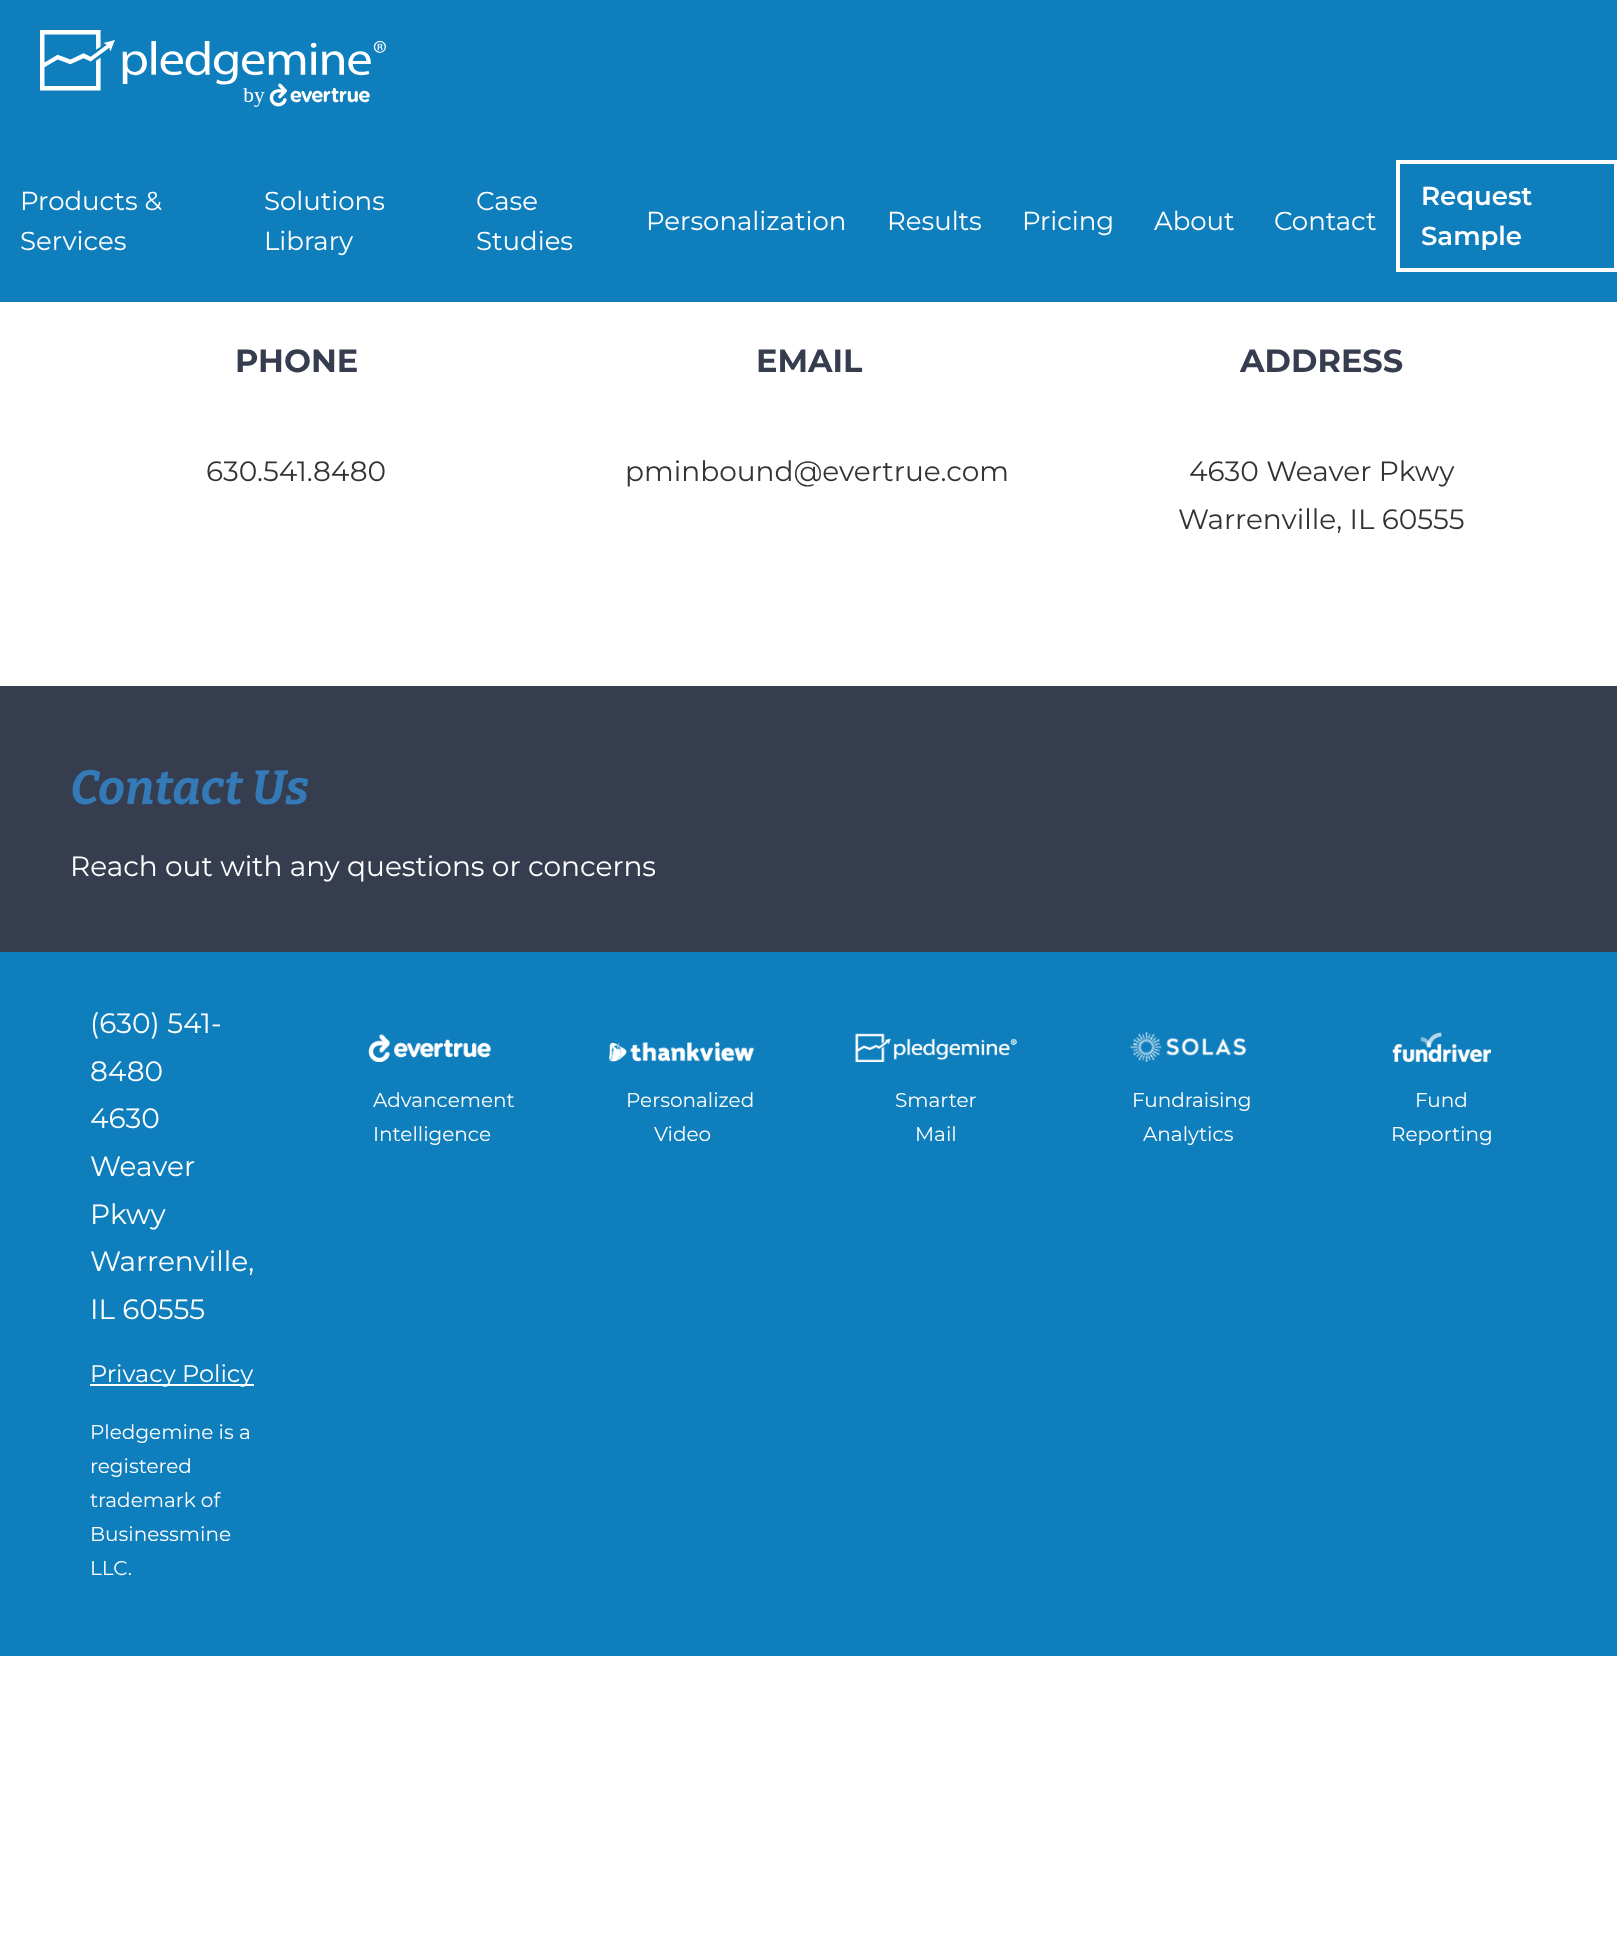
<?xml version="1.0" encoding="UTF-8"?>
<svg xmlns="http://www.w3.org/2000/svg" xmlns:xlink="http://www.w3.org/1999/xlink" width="1617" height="1944">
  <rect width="100%" height="100%" fill="#ffffff" />
  <rect width="1617" height="302" fill="#0e7ebc" />
  <image x="40" y="30" width="346" height="77" xlink:href="image1.png" />
  <rect x="1398" y="162" width="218" height="108" fill="none" stroke="#ffffff" stroke-width="4" />
  <rect y="686" width="1617" height="266" fill="#363d4f" />
  <rect y="952" width="1617" height="704" fill="#0e7ebc" />
  <rect x="90" y="1384" width="164" height="2" fill="#ffffff" />
  <image x="368" y="1034" width="123" height="28" xlink:href="image2.png" />
  <image x="609" y="1042" width="146" height="20" xlink:href="image3.png" />
  <image x="855" y="1033" width="162" height="29" xlink:href="image4.png" />
  <image x="1129" y="1032" width="118" height="30" xlink:href="image5.png" />
  <image x="1392" y="1032" width="99" height="30" xlink:href="image6.png" />
  <text x="20" y="210" style="font-family: Montserrat; font-size: 26px; fill: #ffffff">Products &amp;</text>
  <text x="20" y="250" style="font-family: Montserrat; font-size: 26px; fill: #ffffff">Services</text>
  <text x="264" y="210" style="font-family: Montserrat; font-size: 26px; fill: #ffffff">Solutions</text>
  <text x="264" y="250" style="font-family: Montserrat; font-size: 26px; fill: #ffffff">Library</text>
  <text x="476" y="210" style="font-family: Montserrat; font-size: 26px; fill: #ffffff">Case</text>
  <text x="476" y="250" style="font-family: Montserrat; font-size: 26px; fill: #ffffff">Studies</text>
  <text x="646" y="230" style="font-family: Montserrat; font-size: 26px; fill: #ffffff">Personalization</text>
  <text x="887" y="230" style="font-family: Montserrat; font-size: 26px; fill: #ffffff">Results</text>
  <text x="1022" y="230" style="font-family: Montserrat; font-size: 26px; fill: #ffffff">Pricing</text>
  <text x="1154" y="230" style="font-family: Montserrat; font-size: 26px; fill: #ffffff">About</text>
  <text x="1274" y="230" style="font-family: Montserrat; font-size: 26px; fill: #ffffff">Contact</text>
  <text x="1421" y="205" style="font-family: Montserrat; font-size: 26px; font-weight: 600; fill: #ffffff">Request</text>
  <text x="1421" y="245" style="font-family: Montserrat; font-size: 26px; font-weight: 600; fill: #ffffff">Sample</text>
  <text x="235" y="372" style="font-family: Montserrat; font-size: 32px; font-weight: bold; fill: #363d4f">PHONE</text>
  <text x="206" y="481" style="font-family: Montserrat; font-size: 28px; fill: #333333">630.541.8480</text>
  <text x="756" y="372" style="font-family: Montserrat; font-size: 32px; font-weight: bold; fill: #363d4f">EMAIL</text>
  <text x="625" y="481" style="font-family: Montserrat; font-size: 28px; fill: #333333">pminbound@evertrue.com</text>
  <text x="1240" y="372" style="font-family: Montserrat; font-size: 32px; font-weight: bold; fill: #363d4f">ADDRESS</text>
  <text x="1189" y="481" style="font-family: Montserrat; font-size: 28px; fill: #333333">4630 Weaver Pkwy</text>
  <text x="1178" y="529" style="font-family: Montserrat; font-size: 28px; fill: #333333">Warrenville, IL 60555</text>
  <text x="70" y="804" style="font-family: Bitter; font-size: 48px; font-weight: bold; font-style: italic; fill: #337ab7">Contact Us</text>
  <text x="70" y="876" style="font-family: Montserrat; font-size: 28px; fill: #ffffff">Reach out with any questions or concerns</text>
  <text x="90" y="1033" style="font-family: Montserrat; font-size: 28px; fill: #ffffff">(630) 541-</text>
  <text x="90" y="1081" style="font-family: Montserrat; font-size: 28px; fill: #ffffff">8480</text>
  <text x="90" y="1128" style="font-family: Montserrat; font-size: 28px; fill: #ffffff">4630</text>
  <text x="90" y="1176" style="font-family: Montserrat; font-size: 28px; fill: #ffffff">Weaver</text>
  <text x="90" y="1224" style="font-family: Montserrat; font-size: 28px; fill: #ffffff">Pkwy</text>
  <text x="90" y="1271" style="font-family: Montserrat; font-size: 28px; fill: #ffffff">Warrenville,</text>
  <text x="90" y="1319" style="font-family: Montserrat; font-size: 28px; fill: #ffffff">IL 60555</text>
  <text x="90" y="1382" style="font-family: Montserrat; font-size: 24px; fill: #ffffff">Privacy Policy</text>
  <text x="90" y="1439" style="font-family: Montserrat; font-size: 20px; fill: #ffffff">Pledgemine is a</text>
  <text x="90" y="1473" style="font-family: Montserrat; font-size: 20px; fill: #ffffff">registered</text>
  <text x="90" y="1507" style="font-family: Montserrat; font-size: 20px; fill: #ffffff">trademark of</text>
  <text x="90" y="1541" style="font-family: Montserrat; font-size: 20px; fill: #ffffff">Businessmine</text>
  <text x="90" y="1575" style="font-family: Montserrat; font-size: 20px; fill: #ffffff">LLC.</text>
  <text x="373" y="1107" style="font-family: Montserrat; font-size: 20px; fill: #ffffff">Advancement</text>
  <text x="373" y="1141" style="font-family: Montserrat; font-size: 20px; fill: #ffffff">Intelligence</text>
  <text x="626" y="1107" style="font-family: Montserrat; font-size: 20px; fill: #ffffff">Personalized</text>
  <text x="654" y="1141" style="font-family: Montserrat; font-size: 20px; fill: #ffffff">Video</text>
  <text x="895" y="1107" style="font-family: Montserrat; font-size: 20px; fill: #ffffff">Smarter</text>
  <text x="915" y="1141" style="font-family: Montserrat; font-size: 20px; fill: #ffffff">Mail</text>
  <text x="1132" y="1107" style="font-family: Montserrat; font-size: 20px; fill: #ffffff">Fundraising</text>
  <text x="1143" y="1141" style="font-family: Montserrat; font-size: 20px; fill: #ffffff">Analytics</text>
  <text x="1415" y="1107" style="font-family: Montserrat; font-size: 20px; fill: #ffffff">Fund</text>
  <text x="1391" y="1141" style="font-family: Montserrat; font-size: 20px; fill: #ffffff">Reporting</text>
</svg>
